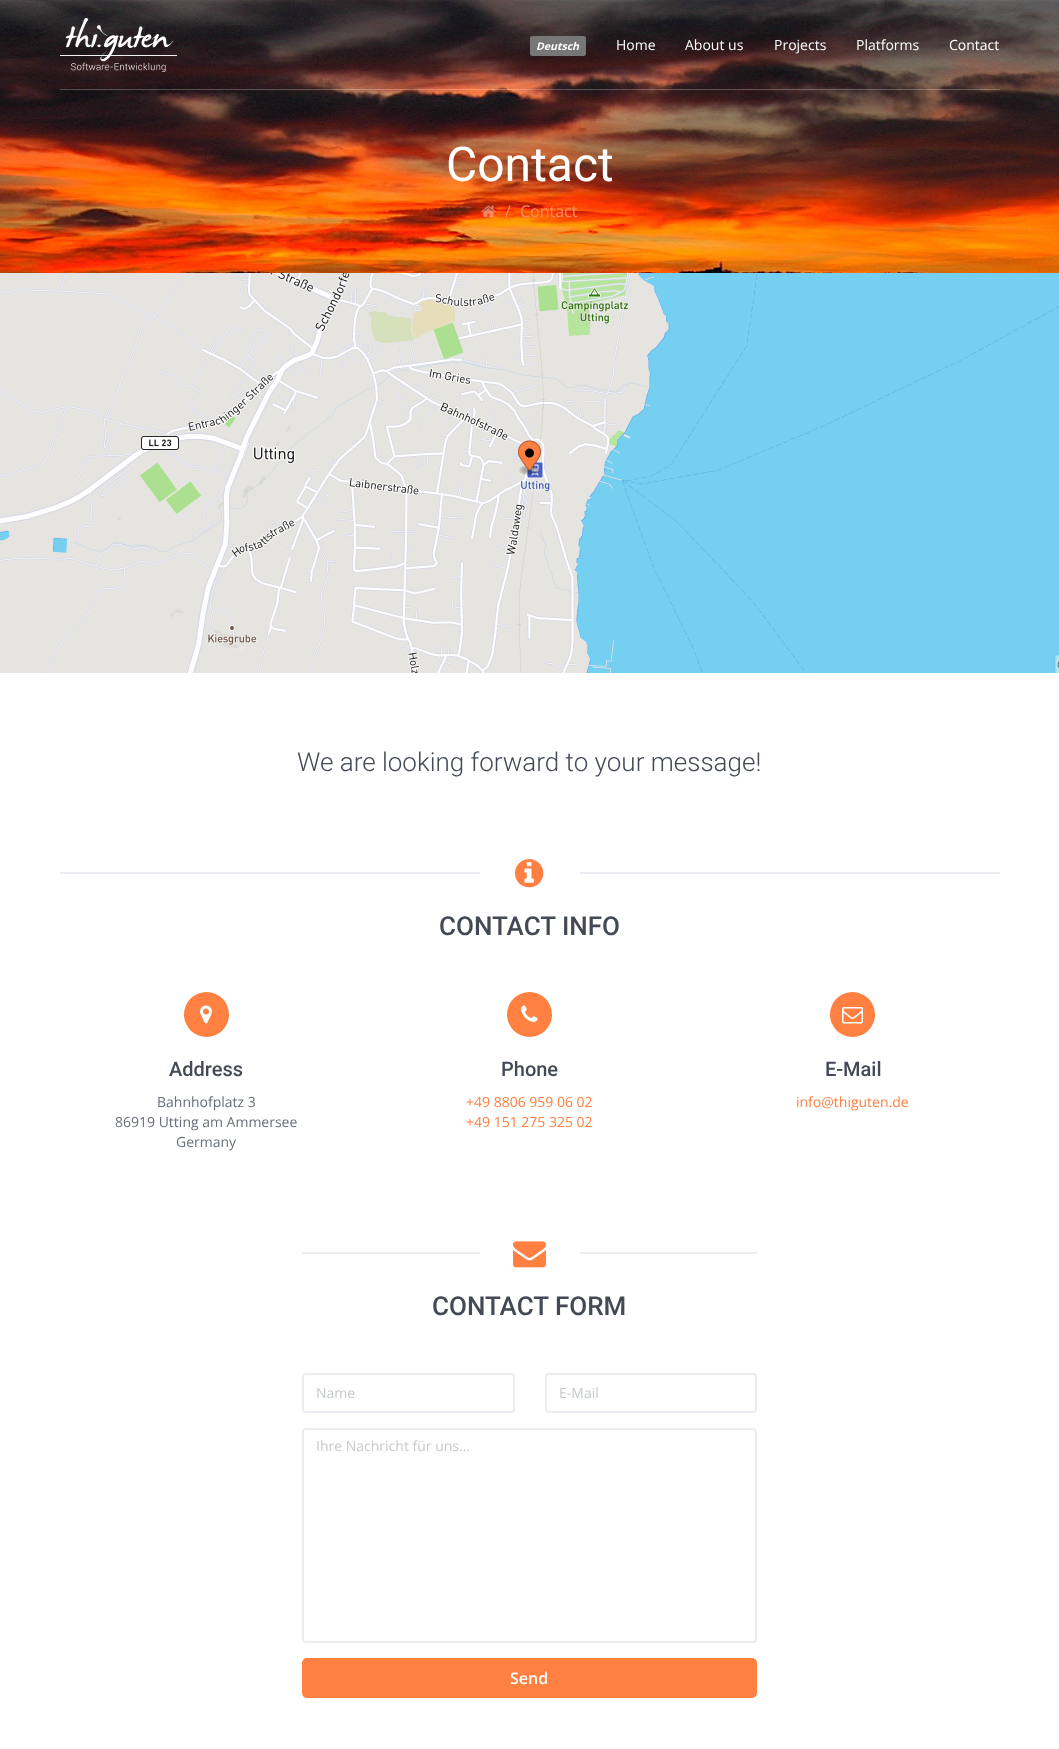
<?xml version="1.0" encoding="UTF-8"?>
<svg xmlns="http://www.w3.org/2000/svg" xmlns:xlink="http://www.w3.org/1999/xlink" width="1059" height="1749">
  <rect width="100%" height="100%" fill="#ffffff" />
  <image x="0" y="0" width="1059" height="273" xlink:href="image1.png" />
  <rect x="60" y="89" width="940" height="1" fill="#ffffff" fill-opacity="0.25" />
  <image x="60" y="18" width="117" height="54" xlink:href="image2.png" />
  <rect x="530" y="36" width="56" height="20" rx="2.5" fill="#777777" />
  <image x="481" y="205" width="15" height="12" xlink:href="image3.png" />
  <image x="0" y="273" width="1059" height="400" xlink:href="image4.png" />
  <rect x="60" y="872" width="940" height="2" fill="#eaedf2" />
  <rect x="480" y="872" width="100" height="2" fill="#ffffff" />
  <image x="515" y="859" width="29" height="29" xlink:href="image5.png" />
  <circle cx="206.5" cy="1014.5" r="22.5" fill="#ff8041" />
  <image x="200" y="1005" width="12" height="19" xlink:href="image6.png" />
  <circle cx="529.5" cy="1014.5" r="22.5" fill="#ff8041" />
  <image x="521" y="1005" width="17" height="17" xlink:href="image7.png" />
  <circle cx="852.5" cy="1014.5" r="22.5" fill="#ff8041" />
  <image x="842" y="1007" width="21" height="17" xlink:href="image8.png" />
  <rect x="302" y="1252" width="455" height="2" fill="#eaedf2" />
  <rect x="480" y="1252" width="100" height="2" fill="#ffffff" />
  <image x="513" y="1241" width="33" height="27" xlink:href="image9.png" />
  <rect x="303" y="1374" width="211" height="38" rx="3" fill="none" stroke="#eaedf2" stroke-width="2" />
  <rect x="546" y="1374" width="210" height="38" rx="3" fill="none" stroke="#eaedf2" stroke-width="2" />
  <rect x="303" y="1429" width="453" height="213" rx="3" fill="none" stroke="#eaedf2" stroke-width="2" />
  <rect x="303" y="1659" width="453" height="38" rx="4" fill="#ff8041" stroke="#ff8041" stroke-width="2" />
  <text x="536" y="50" style="font-family: Open Sans; font-size: 10.5px; font-weight: bold; font-style: italic; fill: #ffffff">Deutsch</text>
  <text x="616" y="50" style="font-family: Open Sans; font-size: 14px; fill: #ffffff">Home</text>
  <text x="685" y="50" style="font-family: Open Sans; font-size: 14px; fill: #ffffff">About us</text>
  <text x="774" y="50" style="font-family: Open Sans; font-size: 14px; fill: #ffffff">Projects</text>
  <text x="856" y="50" style="font-family: Open Sans; font-size: 14px; fill: #ffffff">Platforms</text>
  <text x="949" y="50" style="font-family: Open Sans; font-size: 14px; fill: #ffffff">Contact</text>
  <text x="446" y="181" style="font-family: Roboto; font-size: 48px; fill: #ffffff">Contact</text>
  <text x="505" y="217" style="font-family: Open Sans; font-size: 16px; fill: #f58d68">/</text>
  <text x="520" y="217" style="font-family: Open Sans; font-size: 16px; fill: #f58d68">Contact</text>
  <text x="297" y="771" style="font-family: Roboto; font-size: 26px; font-weight: 300; fill: #434955">We are looking forward to your message!</text>
  <text x="439" y="935" style="font-family: Roboto; font-size: 26px; font-weight: 500; fill: #434955">CONTACT INFO</text>
  <text x="169" y="1076" style="font-family: Roboto; font-size: 20px; font-weight: 500; fill: #434955">Address</text>
  <text x="157" y="1107" style="font-family: Open Sans; font-size: 14px; fill: #676f7a">Bahnhofplatz 3</text>
  <text x="115" y="1127" style="font-family: Open Sans; font-size: 14px; fill: #676f7a">86919 Utting am Ammersee</text>
  <text x="176" y="1147" style="font-family: Open Sans; font-size: 14px; fill: #676f7a">Germany</text>
  <text x="501" y="1076" style="font-family: Roboto; font-size: 20px; font-weight: 500; fill: #434955">Phone</text>
  <text x="466" y="1107" style="font-family: Open Sans; font-size: 14px; fill: #ff8041">+49 8806 959 06 02</text>
  <text x="466" y="1127" style="font-family: Open Sans; font-size: 14px; fill: #ff8041">+49 151 275 325 02</text>
  <text x="825" y="1076" style="font-family: Roboto; font-size: 20px; font-weight: 500; fill: #434955">E-Mail</text>
  <text x="796" y="1107" style="font-family: Open Sans; font-size: 14px; fill: #ff8041">info@thiguten.de</text>
  <text x="432" y="1315" style="font-family: Roboto; font-size: 26px; font-weight: 500; fill: #434955">CONTACT FORM</text>
  <text x="316" y="1398" style="font-family: Open Sans; font-size: 14px; fill: #c5c9ce">Name</text>
  <text x="559" y="1398" style="font-family: Open Sans; font-size: 14px; fill: #c5c9ce">E-Mail</text>
  <text x="316" y="1451" style="font-family: Open Sans; font-size: 14px; fill: #c5c9ce">Ihre Nachricht für uns...</text>
  <text x="510" y="1684" style="font-family: Open Sans; font-size: 16px; font-weight: 600; fill: #ffffff">Send</text>
</svg>
